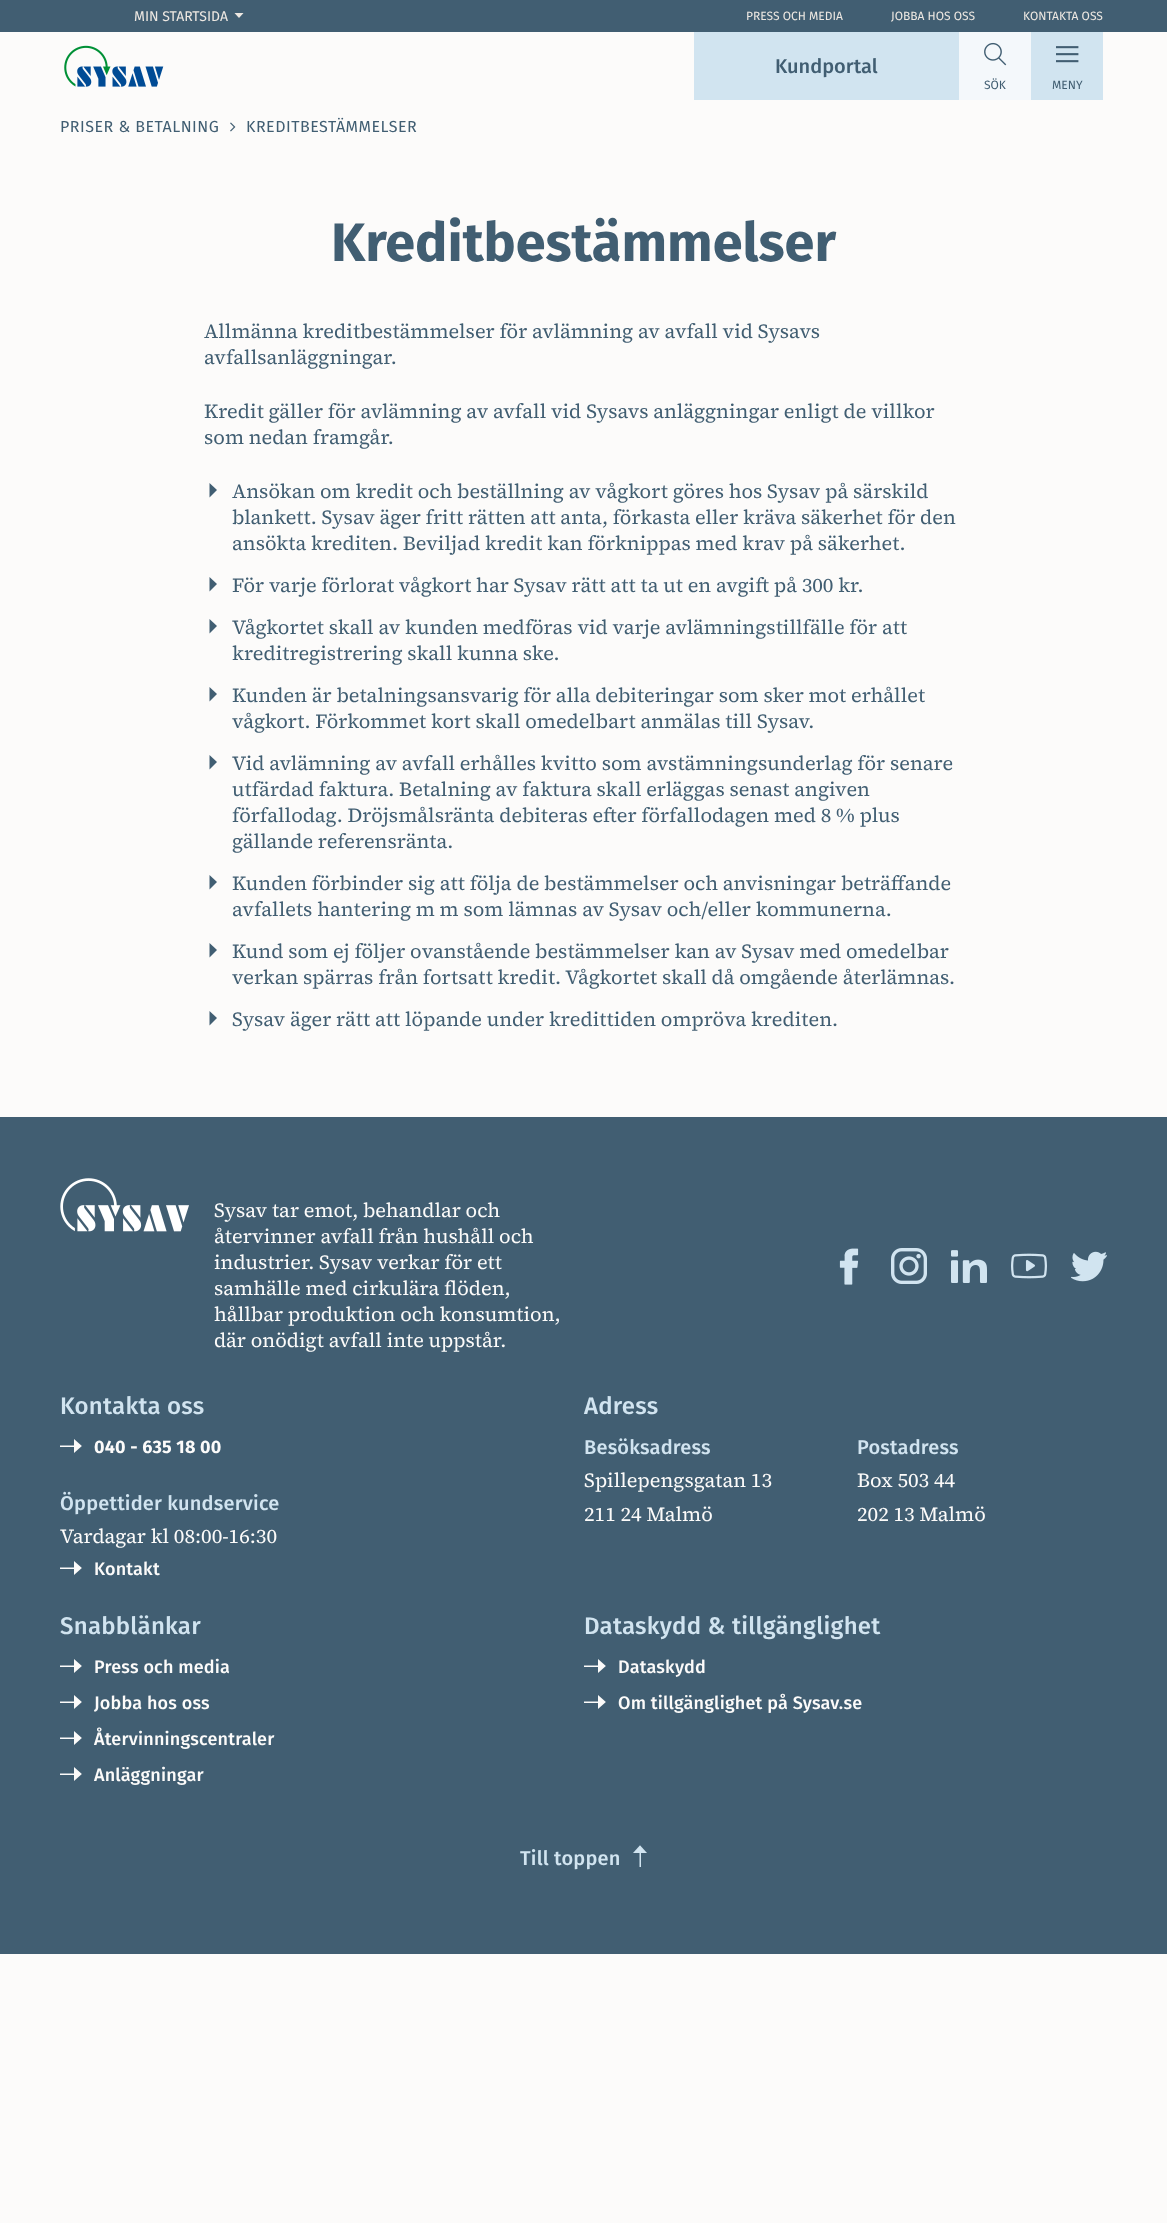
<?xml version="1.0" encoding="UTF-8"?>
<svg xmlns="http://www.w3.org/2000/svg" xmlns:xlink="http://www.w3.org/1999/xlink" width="1167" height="2223">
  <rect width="100%" height="100%" fill="#fcfbfa" />
  <rect width="1167" height="32" fill="#415e72" />
  <path d="M 239 18 l 4.5 -5 h -9 z" fill="#ede8e2" />
  <image x="64" y="45" width="100" height="42" xlink:href="image1.png" />
  <rect x="694" y="32" width="265" height="68" fill="#d1e4f0" />
  <rect x="959" y="32" width="72" height="68" fill="#f4f8fb" />
  <image x="984" y="42" width="23" height="24" xlink:href="image2.png" />
  <rect x="1031" y="32" width="72" height="68" fill="#d1e4f0" />
  <image x="1056" y="46" width="23" height="17" xlink:href="image3.png" />
  <image x="230" y="122" width="6" height="10" xlink:href="image4.png" />
  <path d="M 217 490 l -7.5 -7 v 14.5 z" fill="#415e72" />
  <path d="M 217 584 l -7.5 -7 v 14.5 z" fill="#415e72" />
  <path d="M 217 626 l -7.5 -7 v 14.5 z" fill="#415e72" />
  <path d="M 217 694 l -7.5 -7 v 14.5 z" fill="#415e72" />
  <path d="M 217 762 l -7.5 -7 v 14.5 z" fill="#415e72" />
  <path d="M 217 882 l -7.5 -7 v 14.5 z" fill="#415e72" />
  <path d="M 217 950 l -7.5 -7 v 14.5 z" fill="#415e72" />
  <path d="M 217 1018 l -7.5 -7 v 14.5 z" fill="#415e72" />
  <rect y="1117" width="1167" height="837" fill="#415e72" />
  <image x="60" y="1178" width="129" height="54" xlink:href="image5.png" />
  <image x="839" y="1248" width="20" height="37" xlink:href="image6.png" />
  <image x="891" y="1248" width="36" height="36" xlink:href="image7.png" />
  <image x="951" y="1250" width="36" height="33" xlink:href="image8.png" />
  <image x="1011" y="1253" width="36" height="26" xlink:href="image9.png" />
  <image x="1071" y="1251" width="36" height="31" xlink:href="image10.png" />
  <image x="60" y="1439" width="22" height="14" xlink:href="image11.png" />
  <image x="60" y="1561" width="22" height="14" xlink:href="image11.png" />
  <image x="60" y="1659" width="22" height="14" xlink:href="image11.png" />
  <image x="60" y="1695" width="22" height="14" xlink:href="image11.png" />
  <image x="60" y="1731" width="22" height="14" xlink:href="image11.png" />
  <image x="60" y="1767" width="22" height="14" xlink:href="image11.png" />
  <image x="584" y="1659" width="22" height="14" xlink:href="image11.png" />
  <image x="584" y="1695" width="22" height="14" xlink:href="image11.png" />
  <image x="633" y="1845" width="14" height="22" xlink:href="image12.png" />
  <text x="134" y="21" style="font-family: Fira Sans; font-size: 14px; fill: #ede8e2">MIN STARTSIDA</text>
  <text x="746" y="20" style="font-family: Fira Sans; font-size: 12px; fill: #ede8e2">PRESS OCH MEDIA</text>
  <text x="891" y="20" style="font-family: Fira Sans; font-size: 12px; fill: #ede8e2">JOBBA HOS OSS</text>
  <text x="1023" y="20" style="font-family: Fira Sans; font-size: 12px; fill: #ede8e2">KONTAKTA OSS</text>
  <text x="775" y="73" style="font-family: Fira Sans; font-size: 20px; font-weight: 500; fill: #415e72">Kundportal</text>
  <text x="984" y="89" style="font-family: Fira Sans; font-size: 12px; fill: #415e72">SÖK</text>
  <text x="1052" y="89" style="font-family: Fira Sans; font-size: 12px; fill: #415e72">MENY</text>
  <text x="60" y="132" style="font-family: Fira Sans; font-size: 16px; letter-spacing: 0.5px; fill: #415e72">PRISER &amp; BETALNING</text>
  <text x="246" y="132" style="font-family: Fira Sans; font-size: 16px; letter-spacing: 0.5px; fill: #415e72">KREDITBESTÄMMELSER</text>
  <text x="331" y="261" style="font-family: Fira Sans; font-size: 54px; font-weight: bold; fill: #415e72">Kreditbestämmelser</text>
  <text x="204" y="338" style="font-family: 'Source Serif 4'; font-size: 20px; fill: #415e72">Allmänna kreditbestämmelser för avlämning av avfall vid Sysavs</text>
  <text x="204" y="364" style="font-family: 'Source Serif 4'; font-size: 20px; fill: #415e72">avfallsanläggningar.</text>
  <text x="204" y="418" style="font-family: 'Source Serif 4'; font-size: 20px; fill: #415e72">Kredit gäller för avlämning av avfall vid Sysavs anläggningar enligt de villkor</text>
  <text x="204" y="444" style="font-family: 'Source Serif 4'; font-size: 20px; fill: #415e72">som nedan framgår.</text>
  <text x="232" y="498" style="font-family: 'Source Serif 4'; font-size: 20px; fill: #415e72">Ansökan om kredit och beställning av vågkort göres hos Sysav på särskild</text>
  <text x="232" y="524" style="font-family: 'Source Serif 4'; font-size: 20px; fill: #415e72">blankett. Sysav äger fritt rätten att anta, förkasta eller kräva säkerhet för den</text>
  <text x="232" y="550" style="font-family: 'Source Serif 4'; font-size: 20px; fill: #415e72">ansökta krediten. Beviljad kredit kan förknippas med krav på säkerhet.</text>
  <text x="232" y="592" style="font-family: 'Source Serif 4'; font-size: 20px; fill: #415e72">För varje förlorat vågkort har Sysav rätt att ta ut en avgift på 300 kr.</text>
  <text x="232" y="634" style="font-family: 'Source Serif 4'; font-size: 20px; fill: #415e72">Vågkortet skall av kunden medföras vid varje avlämningstillfälle för att</text>
  <text x="232" y="660" style="font-family: 'Source Serif 4'; font-size: 20px; fill: #415e72">kreditregistrering skall kunna ske.</text>
  <text x="232" y="702" style="font-family: 'Source Serif 4'; font-size: 20px; fill: #415e72">Kunden är betalningsansvarig för alla debiteringar som sker mot erhållet</text>
  <text x="232" y="728" style="font-family: 'Source Serif 4'; font-size: 20px; fill: #415e72">vågkort. Förkommet kort skall omedelbart anmälas till Sysav.</text>
  <text x="232" y="770" style="font-family: 'Source Serif 4'; font-size: 20px; fill: #415e72">Vid avlämning av avfall erhålles kvitto som avstämningsunderlag för senare</text>
  <text x="232" y="796" style="font-family: 'Source Serif 4'; font-size: 20px; fill: #415e72">utfärdad faktura. Betalning av faktura skall erläggas senast angiven</text>
  <text x="232" y="822" style="font-family: 'Source Serif 4'; font-size: 20px; fill: #415e72">förfallodag. Dröjsmålsränta debiteras efter förfallodagen med 8 % plus</text>
  <text x="232" y="848" style="font-family: 'Source Serif 4'; font-size: 20px; fill: #415e72">gällande referensränta.</text>
  <text x="232" y="890" style="font-family: 'Source Serif 4'; font-size: 20px; fill: #415e72">Kunden förbinder sig att följa de bestämmelser och anvisningar beträffande</text>
  <text x="232" y="916" style="font-family: 'Source Serif 4'; font-size: 20px; fill: #415e72">avfallets hantering m m som lämnas av Sysav och/eller kommunerna.</text>
  <text x="232" y="958" style="font-family: 'Source Serif 4'; font-size: 20px; fill: #415e72">Kund som ej följer ovanstående bestämmelser kan av Sysav med omedelbar</text>
  <text x="232" y="984" style="font-family: 'Source Serif 4'; font-size: 20px; fill: #415e72">verkan spärras från fortsatt kredit. Vågkortet skall då omgående återlämnas.</text>
  <text x="232" y="1026" style="font-family: 'Source Serif 4'; font-size: 20px; fill: #415e72">Sysav äger rätt att löpande under kredittiden ompröva krediten.</text>
  <text x="214" y="1217" style="font-family: 'Source Serif 4'; font-size: 20px; fill: #fcfbfa">Sysav tar emot, behandlar och</text>
  <text x="214" y="1243" style="font-family: 'Source Serif 4'; font-size: 20px; fill: #fcfbfa">återvinner avfall från hushåll och</text>
  <text x="214" y="1269" style="font-family: 'Source Serif 4'; font-size: 20px; fill: #fcfbfa">industrier. Sysav verkar för ett</text>
  <text x="214" y="1295" style="font-family: 'Source Serif 4'; font-size: 20px; fill: #fcfbfa">samhälle med cirkulära flöden,</text>
  <text x="214" y="1321" style="font-family: 'Source Serif 4'; font-size: 20px; fill: #fcfbfa">hållbar produktion och konsumtion,</text>
  <text x="214" y="1347" style="font-family: 'Source Serif 4'; font-size: 20px; fill: #fcfbfa">där onödigt avfall inte uppstår.</text>
  <text x="60" y="1414" style="font-family: Fira Sans; font-size: 24px; font-weight: 500; letter-spacing: 0.25px; fill: #d1e4f0">Kontakta oss</text>
  <text x="94" y="1453" style="font-family: Fira Sans; font-size: 18px; font-weight: bold; letter-spacing: 0.2px; fill: #fcfbfa">040 - 635 18 00</text>
  <text x="60" y="1510" style="font-family: Fira Sans; font-size: 20px; font-weight: 500; letter-spacing: 0.2px; fill: #d1e4f0">Öppettider kundservice</text>
  <text x="60" y="1543" style="font-family: 'Source Serif 4'; font-size: 20px; fill: #fcfbfa">Vardagar kl 08:00-16:30</text>
  <text x="94" y="1575" style="font-family: Fira Sans; font-size: 18px; font-weight: 500; letter-spacing: 0.2px; fill: #fcfbfa">Kontakt</text>
  <text x="584" y="1414" style="font-family: Fira Sans; font-size: 24px; font-weight: 500; letter-spacing: 0.25px; fill: #d1e4f0">Adress</text>
  <text x="584" y="1454" style="font-family: Fira Sans; font-size: 20px; font-weight: 500; letter-spacing: 0.2px; fill: #d1e4f0">Besöksadress</text>
  <text x="584" y="1487" style="font-family: 'Source Serif 4'; font-size: 20px; fill: #fcfbfa">Spillepengsgatan 13</text>
  <text x="584" y="1521" style="font-family: 'Source Serif 4'; font-size: 20px; fill: #fcfbfa">211 24 Malmö</text>
  <text x="857" y="1454" style="font-family: Fira Sans; font-size: 20px; font-weight: 500; letter-spacing: 0.2px; fill: #d1e4f0">Postadress</text>
  <text x="857" y="1487" style="font-family: 'Source Serif 4'; font-size: 20px; fill: #fcfbfa">Box 503 44</text>
  <text x="857" y="1521" style="font-family: 'Source Serif 4'; font-size: 20px; fill: #fcfbfa">202 13 Malmö</text>
  <text x="60" y="1634" style="font-family: Fira Sans; font-size: 24px; font-weight: 500; letter-spacing: 0.25px; fill: #d1e4f0">Snabblänkar</text>
  <text x="94" y="1673" style="font-family: Fira Sans; font-size: 18px; font-weight: 500; letter-spacing: 0.2px; fill: #fcfbfa">Press och media</text>
  <text x="94" y="1709" style="font-family: Fira Sans; font-size: 18px; font-weight: 500; letter-spacing: 0.2px; fill: #fcfbfa">Jobba hos oss</text>
  <text x="94" y="1745" style="font-family: Fira Sans; font-size: 18px; font-weight: 500; letter-spacing: 0.2px; fill: #fcfbfa">Återvinningscentraler</text>
  <text x="94" y="1781" style="font-family: Fira Sans; font-size: 18px; font-weight: 500; letter-spacing: 0.2px; fill: #fcfbfa">Anläggningar</text>
  <text x="584" y="1634" style="font-family: Fira Sans; font-size: 24px; font-weight: 500; letter-spacing: 0.25px; fill: #d1e4f0">Dataskydd &amp; tillgänglighet</text>
  <text x="618" y="1673" style="font-family: Fira Sans; font-size: 18px; font-weight: 500; letter-spacing: 0.2px; fill: #fcfbfa">Dataskydd</text>
  <text x="618" y="1709" style="font-family: Fira Sans; font-size: 18px; font-weight: 500; letter-spacing: 0.2px; fill: #fcfbfa">Om tillgänglighet på Sysav.se</text>
  <text x="520" y="1865" style="font-family: Fira Sans; font-size: 20px; font-weight: 500; letter-spacing: 0.2px; fill: #d1e4f0">Till toppen</text>
</svg>
